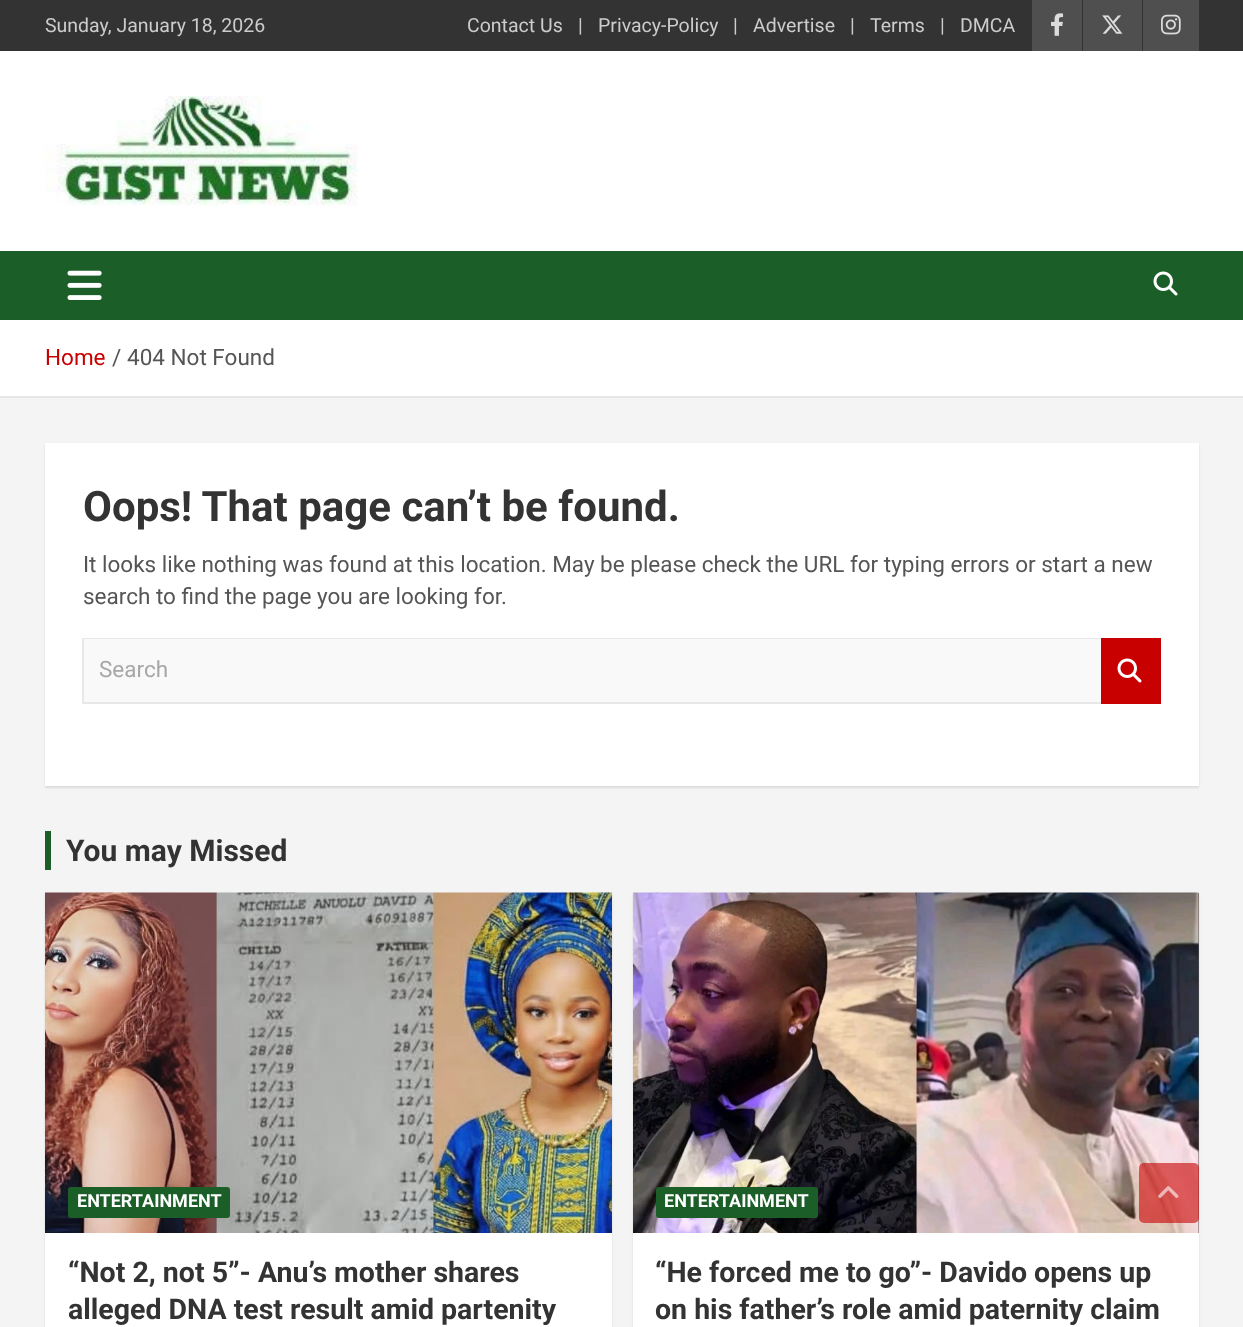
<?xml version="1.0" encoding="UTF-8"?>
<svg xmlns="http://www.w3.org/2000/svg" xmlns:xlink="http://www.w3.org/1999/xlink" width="1243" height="1327">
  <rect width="100%" height="100%" fill="#f4f4f4" />
  <rect width="1243" height="51" fill="#333333" />
  <rect x="1032" width="50" height="51" fill="#4f4f4f" />
  <image x="1051" y="13" width="13" height="23" xlink:href="image1.png" />
  <rect x="1083" width="59" height="51" fill="#4f4f4f" />
  <image x="1102" y="15" width="21" height="19" xlink:href="image2.png" />
  <rect x="1143" width="56" height="51" fill="#4f4f4f" />
  <image x="1161" y="14" width="20" height="21" xlink:href="image3.png" />
  <rect y="51" width="1243" height="200" fill="#ffffff" />
  <image x="45" y="96" width="313" height="110" xlink:href="image4.png" />
  <rect y="251" width="1243" height="69" fill="#1b5e28" />
  <image x="67" y="270" width="35" height="30" xlink:href="image5.png" />
  <image x="1153" y="271" width="25" height="25" xlink:href="image6.png" />
  <rect y="320" width="1243" height="76" fill="#ffffff" />
  <rect y="396" width="1243" height="2" fill="#e6e6e6" />
  <rect x="45" y="444" width="1154" height="344" fill="#000000" fill-opacity="0.1" filter="blur(1px)" />
  <rect x="45" y="443" width="1154" height="343" fill="#ffffff" />
  <rect x="84" y="639" width="1017" height="63" fill="#f9f9f9" />
  <path d="M 82 638 h 1019 v 1 h -1017 z" fill="#e8e8e8" />
  <path d="M 1101 704 h -1019 l 2 -2 h 1017 z" fill="#e8e8e8" />
  <path d="M 82 704 v -66 l 2 1 v 63 z" fill="#000000" fill-opacity="0.09" />
  <rect x="1101" y="638" width="60" height="66" fill="#c80000" />
  <image x="1117" y="658" width="25" height="25" xlink:href="image7.png" />
  <rect x="45" y="831" width="6" height="39" fill="#1b5e28" />
  <rect x="45" y="894" width="567" height="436" fill="#000000" fill-opacity="0.1" filter="blur(1px)" />
  <rect x="45" y="1233" width="567" height="94" fill="#ffffff" />
  <image x="45" y="892" width="567" height="341" xlink:href="image8.png" />
  <rect x="68" y="1187" width="162" height="31" rx="3" fill="#1b5e28" />
  <rect x="633" y="894" width="566" height="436" fill="#000000" fill-opacity="0.1" filter="blur(1px)" />
  <rect x="633" y="1233" width="566" height="94" fill="#ffffff" />
  <rect x="1198" y="893" width="1" height="340" fill="#555555" />
  <image x="633" y="892" width="566" height="341" xlink:href="image9.png" />
  <rect x="656" y="1187" width="162" height="31" rx="3" fill="#1b5e28" />
  <rect x="1139" y="1163" width="60" height="60" rx="5" fill="#c80000" fill-opacity="0.6" />
  <image x="1158" y="1186" width="21" height="12" xlink:href="image10.png" />
  <text x="45" y="32" style="font-family: Roboto; font-size: 19.5px; fill: #cccccc">Sunday, January 18, 2026</text>
  <text x="467" y="32" style="font-family: Roboto; font-size: 19.5px; fill: #cccccc">Contact Us</text>
  <text x="578" y="32" style="font-family: Roboto; font-size: 19.5px; fill: #cccccc">|</text>
  <text x="598" y="32" style="font-family: Roboto; font-size: 19.5px; fill: #cccccc">Privacy-Policy</text>
  <text x="733" y="32" style="font-family: Roboto; font-size: 19.5px; fill: #cccccc">|</text>
  <text x="753" y="32" style="font-family: Roboto; font-size: 19.5px; fill: #cccccc">Advertise</text>
  <text x="850" y="32" style="font-family: Roboto; font-size: 19.5px; fill: #cccccc">|</text>
  <text x="870" y="32" style="font-family: Roboto; font-size: 19.5px; fill: #cccccc">Terms</text>
  <text x="940" y="32" style="font-family: Roboto; font-size: 19.5px; fill: #cccccc">|</text>
  <text x="960" y="32" style="font-family: Roboto; font-size: 19.5px; fill: #cccccc">DMCA</text>
  <text x="45" y="365" style="font-family: Roboto; font-size: 22.5px; fill: #c80000">Home</text>
  <text x="112" y="365" style="font-family: Roboto; font-size: 22.5px; fill: #555555">/</text>
  <text x="127" y="365" style="font-family: Roboto; font-size: 22.5px; fill: #555555">404 Not Found</text>
  <text x="83" y="521" style="font-family: Roboto; font-size: 42px; font-weight: bold; fill: #333333">Oops! That page can’t be found.</text>
  <text x="83" y="572" style="font-family: Roboto; font-size: 22.5px; fill: #555555">It looks like nothing was found at this location. May be please check the URL for typing errors or start a new</text>
  <text x="83" y="604" style="font-family: Roboto; font-size: 22.5px; fill: #555555">search to find the page you are looking for.</text>
  <text x="99" y="677" style="font-family: Roboto; font-size: 22.5px; fill: #a7a7a7">Search</text>
  <text x="66" y="861" style="font-family: Roboto; font-size: 30px; font-weight: bold; fill: #333333">You may Missed</text>
  <text x="77" y="1207" style="font-family: Roboto; font-size: 18px; font-weight: bold; fill: #ffffff">ENTERTAINMENT</text>
  <text x="68" y="1282" style="font-family: Roboto; font-size: 28.5px; font-weight: bold; fill: #333333">“Not 2, not 5”- Anu’s mother shares</text>
  <text x="68" y="1319" style="font-family: Roboto; font-size: 28.5px; font-weight: bold; fill: #333333">alleged DNA test result amid partenity</text>
  <text x="664" y="1207" style="font-family: Roboto; font-size: 18px; font-weight: bold; fill: #ffffff">ENTERTAINMENT</text>
  <text x="655" y="1282" style="font-family: Roboto; font-size: 28.5px; font-weight: bold; fill: #333333">“He forced me to go”- Davido opens up</text>
  <text x="655" y="1319" style="font-family: Roboto; font-size: 28.5px; font-weight: bold; fill: #333333">on his father’s role amid paternity claim</text>
</svg>
